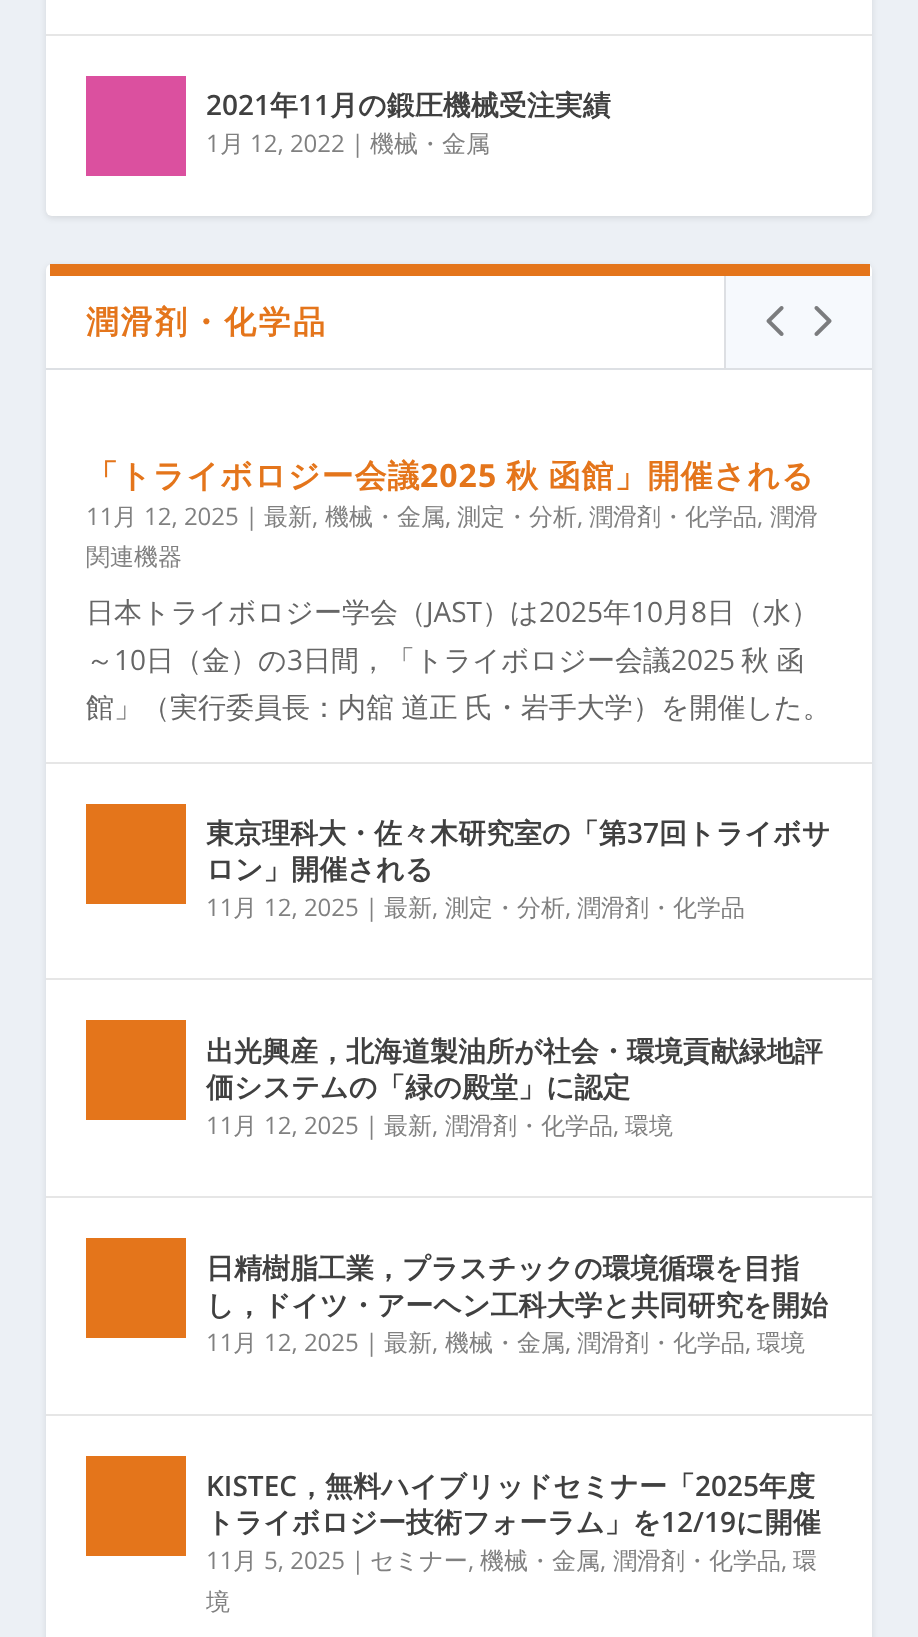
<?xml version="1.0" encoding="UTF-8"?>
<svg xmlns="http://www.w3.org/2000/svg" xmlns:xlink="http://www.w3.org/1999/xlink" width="918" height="1637">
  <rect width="100%" height="100%" fill="#ecf0f5" />
  <rect x="46" y="-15" width="826" height="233" rx="6" fill="#000000" fill-opacity="0.1" filter="blur(3px)" />
  <rect x="46" y="-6" width="826" height="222" rx="6" fill="#ffffff" />
  <rect x="46" y="34" width="826" height="2" fill="#e6e6e6" />
  <rect x="86" y="76" width="100" height="100" fill="#db509f" />
  <rect x="46" y="266" width="826" height="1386" rx="6" fill="#000000" fill-opacity="0.1" filter="blur(3px)" />
  <rect x="46" y="264" width="826" height="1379" rx="6" fill="#ffffff" />
  <rect x="50" y="264" width="820" height="12" fill="#e4751b" />
  <rect x="46" y="368" width="678" height="2" fill="#dde0e4" />
  <rect x="724" y="276" width="148" height="94" fill="#f6f9fd" />
  <path d="M 872 370 h -148 l 2 -2 h 146 z" fill="#dde0e4" />
  <path d="M 724 370 v -94 h 2 v 92 z" fill="#000000" fill-opacity="0.1" />
  <image x="766" y="306" width="18" height="30" xlink:href="image1.png" />
  <image x="814" y="306" width="18" height="30" xlink:href="image2.png" />
  <rect x="46" y="762" width="826" height="2" fill="#e6e6e6" />
  <rect x="46" y="978" width="826" height="2" fill="#e6e6e6" />
  <rect x="86" y="804" width="100" height="100" fill="#e4751b" />
  <rect x="46" y="1196" width="826" height="2" fill="#e6e6e6" />
  <rect x="86" y="1020" width="100" height="100" fill="#e4751b" />
  <rect x="46" y="1414" width="826" height="2" fill="#e6e6e6" />
  <rect x="86" y="1238" width="100" height="100" fill="#e4751b" />
  <rect x="86" y="1456" width="100" height="100" fill="#e4751b" />
  <text x="206" y="115" style="font-family: Open Sans; font-size: 28px; font-weight: 600; fill: #404040">2021</text>
  <text x="270" y="115" style="font-family: WenQuanYi Zen Hei; font-size: 28px; font-weight: bold; fill: #404040">年</text>
  <text x="298" y="115" style="font-family: Open Sans; font-size: 28px; font-weight: 600; fill: #404040">11</text>
  <text x="330" y="115" style="font-family: WenQuanYi Zen Hei; font-size: 28px; font-weight: bold; fill: #404040">月の鍛圧機械受注実績</text>
  <text x="206" y="152" style="font-family: Open Sans; font-size: 24px; fill: #808080">1</text>
  <text x="220" y="152" style="font-family: WenQuanYi Zen Hei; font-size: 24px; font-weight: 500; fill: #808080">月</text>
  <text x="250" y="152" style="font-family: Open Sans; font-size: 24px; fill: #808080">12, 2022 |</text>
  <text x="370" y="152" style="font-family: WenQuanYi Zen Hei; font-size: 24px; font-weight: 500; fill: #808080">機械・金属</text>
  <text x="86" y="333" style="font-family: WenQuanYi Zen Hei; font-size: 32px; font-weight: bold; letter-spacing: 2.5px; fill: #e4751b">潤滑剤・化学品</text>
  <text x="86" y="487" style="font-family: WenQuanYi Zen Hei; font-size: 32px; font-weight: bold; letter-spacing: 1px; fill: #e4751b">「トライボロジー会議</text>
  <text x="420" y="487" style="font-family: Open Sans; font-size: 32px; font-weight: bold; letter-spacing: 1px; fill: #e4751b">2025</text>
  <text x="506" y="487" word-spacing="-1" style="font-family: WenQuanYi Zen Hei; font-size: 32px; font-weight: bold; letter-spacing: 1px; fill: #e4751b">秋 函館」開催される</text>
  <text x="86" y="525" style="font-family: Open Sans; font-size: 24px; fill: #808080">11</text>
  <text x="113" y="525" style="font-family: WenQuanYi Zen Hei; font-size: 24px; font-weight: 500; fill: #808080">月</text>
  <text x="144" y="525" style="font-family: Open Sans; font-size: 24px; fill: #808080">12, 2025 |</text>
  <text x="264" y="525" style="font-family: WenQuanYi Zen Hei; font-size: 24px; font-weight: 500; fill: #808080">最新</text>
  <text x="312" y="525" style="font-family: Open Sans; font-size: 24px; fill: #808080">,</text>
  <text x="325" y="525" style="font-family: WenQuanYi Zen Hei; font-size: 24px; font-weight: 500; fill: #808080">機械・金属</text>
  <text x="445" y="525" style="font-family: Open Sans; font-size: 24px; fill: #808080">,</text>
  <text x="457" y="525" style="font-family: WenQuanYi Zen Hei; font-size: 24px; font-weight: 500; fill: #808080">測定・分析</text>
  <text x="577" y="525" style="font-family: Open Sans; font-size: 24px; fill: #808080">,</text>
  <text x="589" y="525" style="font-family: WenQuanYi Zen Hei; font-size: 24px; font-weight: 500; fill: #808080">潤滑剤・化学品</text>
  <text x="757" y="525" style="font-family: Open Sans; font-size: 24px; fill: #808080">,</text>
  <text x="770" y="525" style="font-family: WenQuanYi Zen Hei; font-size: 24px; font-weight: 500; fill: #808080">潤滑</text>
  <text x="86" y="565" style="font-family: WenQuanYi Zen Hei; font-size: 24px; font-weight: 500; fill: #808080">関連機器</text>
  <text x="86" y="622" style="font-family: WenQuanYi Zen Hei; font-size: 28px; font-weight: 500; fill: #666666">日本トライボロジー学会（</text>
  <text x="426" y="622" style="font-family: Open Sans; font-size: 28px; fill: #666666">JAST</text>
  <text x="482" y="622" style="font-family: WenQuanYi Zen Hei; font-size: 28px; font-weight: 500; fill: #666666">）は</text>
  <text x="539" y="622" style="font-family: Open Sans; font-size: 28px; fill: #666666">2025</text>
  <text x="603" y="622" style="font-family: WenQuanYi Zen Hei; font-size: 28px; font-weight: 500; fill: #666666">年</text>
  <text x="631" y="622" style="font-family: Open Sans; font-size: 28px; fill: #666666">10</text>
  <text x="663" y="622" style="font-family: WenQuanYi Zen Hei; font-size: 28px; font-weight: 500; fill: #666666">月</text>
  <text x="691" y="622" style="font-family: Open Sans; font-size: 28px; fill: #666666">8</text>
  <text x="707" y="622" style="font-family: WenQuanYi Zen Hei; font-size: 28px; font-weight: 500; fill: #666666">日（水）</text>
  <text x="86" y="670" style="font-family: WenQuanYi Zen Hei; font-size: 28px; font-weight: 500; fill: #666666">～</text>
  <text x="114" y="670" style="font-family: Open Sans; font-size: 28px; fill: #666666">10</text>
  <text x="146" y="670" style="font-family: WenQuanYi Zen Hei; font-size: 28px; font-weight: 500; fill: #666666">日（金）の</text>
  <text x="287" y="670" style="font-family: Open Sans; font-size: 28px; fill: #666666">3</text>
  <text x="303" y="670" style="font-family: WenQuanYi Zen Hei; font-size: 28px; font-weight: 500; fill: #666666">日間，「トライボロジー会議</text>
  <text x="671" y="670" style="font-family: Open Sans; font-size: 28px; fill: #666666">2025</text>
  <text x="741" y="670" word-spacing="-1" style="font-family: WenQuanYi Zen Hei; font-size: 28px; font-weight: 500; fill: #666666">秋 函</text>
  <text x="86" y="717" word-spacing="-1" style="font-family: WenQuanYi Zen Hei; font-size: 28px; font-weight: 500; fill: #666666">館」（実行委員長：内舘 道正 氏・岩手大学）を開催した。</text>
  <text x="206" y="843" style="font-family: WenQuanYi Zen Hei; font-size: 28px; font-weight: bold; fill: #404040">東京理科大・佐々木研究室の「第</text>
  <text x="627" y="843" style="font-family: Open Sans; font-size: 28px; font-weight: 600; fill: #404040">37</text>
  <text x="659" y="843" style="font-family: WenQuanYi Zen Hei; font-size: 28px; font-weight: bold; fill: #404040">回トライボサ</text>
  <text x="206" y="879" style="font-family: WenQuanYi Zen Hei; font-size: 28px; font-weight: bold; fill: #404040">ロン」開催される</text>
  <text x="206" y="916" style="font-family: Open Sans; font-size: 24px; fill: #808080">11</text>
  <text x="233" y="916" style="font-family: WenQuanYi Zen Hei; font-size: 24px; font-weight: 500; fill: #808080">月</text>
  <text x="264" y="916" style="font-family: Open Sans; font-size: 24px; fill: #808080">12, 2025 |</text>
  <text x="384" y="916" style="font-family: WenQuanYi Zen Hei; font-size: 24px; font-weight: 500; fill: #808080">最新</text>
  <text x="432" y="916" style="font-family: Open Sans; font-size: 24px; fill: #808080">,</text>
  <text x="445" y="916" style="font-family: WenQuanYi Zen Hei; font-size: 24px; font-weight: 500; fill: #808080">測定・分析</text>
  <text x="565" y="916" style="font-family: Open Sans; font-size: 24px; fill: #808080">,</text>
  <text x="577" y="916" style="font-family: WenQuanYi Zen Hei; font-size: 24px; font-weight: 500; fill: #808080">潤滑剤・化学品</text>
  <text x="206" y="1061" style="font-family: WenQuanYi Zen Hei; font-size: 28px; font-weight: bold; fill: #404040">出光興産，北海道製油所が社会・環境貢献緑地評</text>
  <text x="206" y="1097" style="font-family: WenQuanYi Zen Hei; font-size: 28px; font-weight: bold; fill: #404040">価システムの「緑の殿堂」に認定</text>
  <text x="206" y="1134" style="font-family: Open Sans; font-size: 24px; fill: #808080">11</text>
  <text x="233" y="1134" style="font-family: WenQuanYi Zen Hei; font-size: 24px; font-weight: 500; fill: #808080">月</text>
  <text x="264" y="1134" style="font-family: Open Sans; font-size: 24px; fill: #808080">12, 2025 |</text>
  <text x="384" y="1134" style="font-family: WenQuanYi Zen Hei; font-size: 24px; font-weight: 500; fill: #808080">最新</text>
  <text x="432" y="1134" style="font-family: Open Sans; font-size: 24px; fill: #808080">,</text>
  <text x="445" y="1134" style="font-family: WenQuanYi Zen Hei; font-size: 24px; font-weight: 500; fill: #808080">潤滑剤・化学品</text>
  <text x="613" y="1134" style="font-family: Open Sans; font-size: 24px; fill: #808080">,</text>
  <text x="625" y="1134" style="font-family: WenQuanYi Zen Hei; font-size: 24px; font-weight: 500; fill: #808080">環境</text>
  <text x="206" y="1278" style="font-family: WenQuanYi Zen Hei; font-size: 28px; font-weight: bold; fill: #404040">日精樹脂工業，プラスチックの環境循環を目指</text>
  <text x="206" y="1315" style="font-family: WenQuanYi Zen Hei; font-size: 28px; font-weight: bold; fill: #404040">し，ドイツ・アーヘン工科大学と共同研究を開始</text>
  <text x="206" y="1351" style="font-family: Open Sans; font-size: 24px; fill: #808080">11</text>
  <text x="233" y="1351" style="font-family: WenQuanYi Zen Hei; font-size: 24px; font-weight: 500; fill: #808080">月</text>
  <text x="264" y="1351" style="font-family: Open Sans; font-size: 24px; fill: #808080">12, 2025 |</text>
  <text x="384" y="1351" style="font-family: WenQuanYi Zen Hei; font-size: 24px; font-weight: 500; fill: #808080">最新</text>
  <text x="432" y="1351" style="font-family: Open Sans; font-size: 24px; fill: #808080">,</text>
  <text x="445" y="1351" style="font-family: WenQuanYi Zen Hei; font-size: 24px; font-weight: 500; fill: #808080">機械・金属</text>
  <text x="565" y="1351" style="font-family: Open Sans; font-size: 24px; fill: #808080">,</text>
  <text x="577" y="1351" style="font-family: WenQuanYi Zen Hei; font-size: 24px; font-weight: 500; fill: #808080">潤滑剤・化学品</text>
  <text x="745" y="1351" style="font-family: Open Sans; font-size: 24px; fill: #808080">,</text>
  <text x="757" y="1351" style="font-family: WenQuanYi Zen Hei; font-size: 24px; font-weight: 500; fill: #808080">環境</text>
  <text x="206" y="1496" style="font-family: Open Sans; font-size: 28px; font-weight: 600; fill: #404040">KISTEC</text>
  <text x="297" y="1496" style="font-family: WenQuanYi Zen Hei; font-size: 28px; font-weight: bold; fill: #404040">，無料ハイブリッドセミナー「</text>
  <text x="695" y="1496" style="font-family: Open Sans; font-size: 28px; font-weight: 600; fill: #404040">2025</text>
  <text x="759" y="1496" style="font-family: WenQuanYi Zen Hei; font-size: 28px; font-weight: bold; fill: #404040">年度</text>
  <text x="206" y="1532" style="font-family: WenQuanYi Zen Hei; font-size: 28px; font-weight: bold; fill: #404040">トライボロジー技術フォーラム」を</text>
  <text x="661" y="1532" style="font-family: Open Sans; font-size: 28px; font-weight: 600; fill: #404040">12/19</text>
  <text x="736" y="1532" style="font-family: WenQuanYi Zen Hei; font-size: 28px; font-weight: bold; fill: #404040">に開催</text>
  <text x="206" y="1569" style="font-family: Open Sans; font-size: 24px; fill: #808080">11</text>
  <text x="233" y="1569" style="font-family: WenQuanYi Zen Hei; font-size: 24px; font-weight: 500; fill: #808080">月</text>
  <text x="264" y="1569" style="font-family: Open Sans; font-size: 24px; fill: #808080">5, 2025 |</text>
  <text x="370" y="1569" style="font-family: WenQuanYi Zen Hei; font-size: 24px; font-weight: 500; fill: #808080">セミナー</text>
  <text x="468" y="1569" style="font-family: Open Sans; font-size: 24px; fill: #808080">,</text>
  <text x="480" y="1569" style="font-family: WenQuanYi Zen Hei; font-size: 24px; font-weight: 500; fill: #808080">機械・金属</text>
  <text x="600" y="1569" style="font-family: Open Sans; font-size: 24px; fill: #808080">,</text>
  <text x="613" y="1569" style="font-family: WenQuanYi Zen Hei; font-size: 24px; font-weight: 500; fill: #808080">潤滑剤・化学品</text>
  <text x="781" y="1569" style="font-family: Open Sans; font-size: 24px; fill: #808080">,</text>
  <text x="793" y="1569" style="font-family: WenQuanYi Zen Hei; font-size: 24px; font-weight: 500; fill: #808080">環</text>
  <text x="206" y="1610" style="font-family: WenQuanYi Zen Hei; font-size: 24px; font-weight: 500; fill: #808080">境</text>
</svg>
